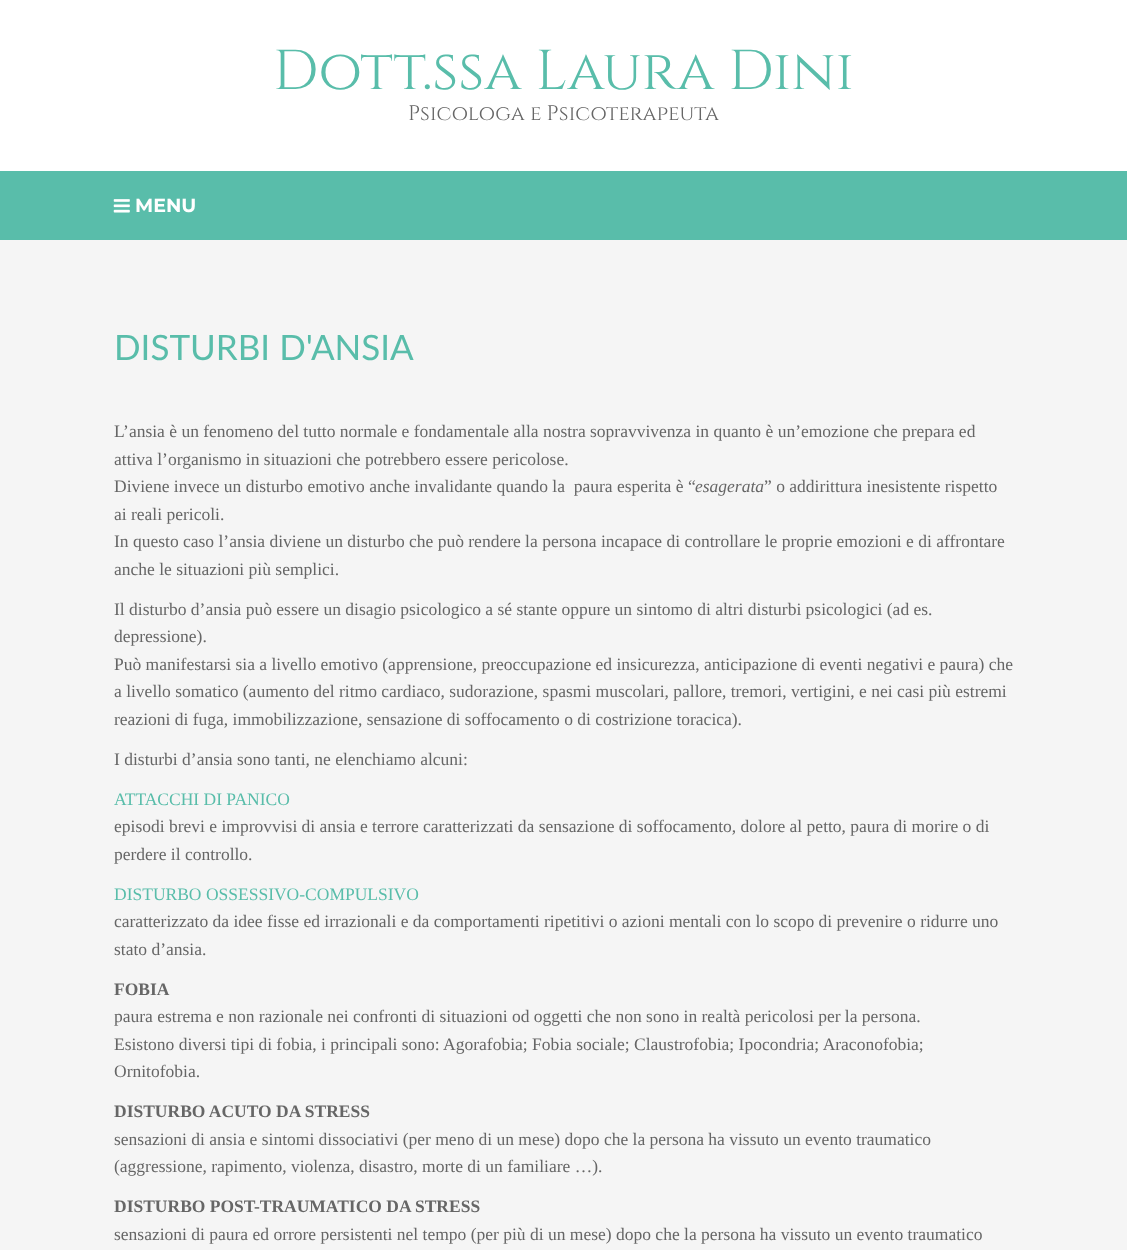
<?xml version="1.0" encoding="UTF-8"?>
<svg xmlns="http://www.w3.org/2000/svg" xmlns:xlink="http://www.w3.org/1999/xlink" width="1127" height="1250">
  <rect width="100%" height="100%" fill="#ffffff" />
  <rect y="171" width="1127" height="69" fill="#59bdaa" />
  <image x="113" y="199" width="17" height="14" xlink:href="image1.png" />
  <rect y="240" width="1127" height="1010" fill="#f5f5f5" />
  <text x="273" y="89" style="font-family: Cinzel; font-size: 56.25px; fill: #59bdaa">Dott.ssa Laura Dini</text>
  <text x="408" y="120" style="font-family: Cinzel; font-size: 21px; fill: #666666">Psicologa e Psicoterapeuta</text>
  <text x="135" y="212" style="font-family: Montserrat; font-size: 19px; font-weight: bold; fill: #ffffff">MENU</text>
  <text x="114" y="360" style="font-family: Lato; font-size: 35px; fill: #59bdaa">DISTURBI D'ANSIA</text>
  <text x="114" y="437" style="font-family: Liberation Serif; font-size: 17.5px; fill: #666666">L’ansia è un fenomeno del tutto normale e fondamentale alla nostra sopravvivenza in quanto è un’emozione che prepara ed</text>
  <text x="114" y="465" style="font-family: Liberation Serif; font-size: 17.5px; fill: #666666">attiva l’organismo in situazioni che potrebbero essere pericolose.</text>
  <text x="114" y="492" style="font-family: Liberation Serif; font-size: 17.5px; fill: #666666" xml:space="preserve">Diviene invece un disturbo emotivo anche invalidante quando la  paura esperita è “</text>
  <text x="695" y="492" style="font-family: Liberation Serif; font-size: 17.5px; font-style: italic; fill: #666666">esagerata</text>
  <text x="764" y="492" style="font-family: Liberation Serif; font-size: 17.5px; fill: #666666">” o addirittura inesistente rispetto</text>
  <text x="114" y="520" style="font-family: Liberation Serif; font-size: 17.5px; fill: #666666">ai reali pericoli.</text>
  <text x="114" y="547" style="font-family: Liberation Serif; font-size: 17.5px; fill: #666666">In questo caso l’ansia diviene un disturbo che può rendere la persona incapace di controllare le proprie emozioni e di affrontare</text>
  <text x="114" y="575" style="font-family: Liberation Serif; font-size: 17.5px; fill: #666666">anche le situazioni più semplici.</text>
  <text x="114" y="615" style="font-family: Liberation Serif; font-size: 17.5px; fill: #666666">Il disturbo d’ansia può essere un disagio psicologico a sé stante oppure un sintomo di altri disturbi psicologici (ad es.</text>
  <text x="114" y="642" style="font-family: Liberation Serif; font-size: 17.5px; fill: #666666">depressione).</text>
  <text x="114" y="670" style="font-family: Liberation Serif; font-size: 17.5px; fill: #666666">Può manifestarsi sia a livello emotivo (apprensione, preoccupazione ed insicurezza, anticipazione di eventi negativi e paura) che</text>
  <text x="114" y="697" style="font-family: Liberation Serif; font-size: 17.5px; fill: #666666">a livello somatico (aumento del ritmo cardiaco, sudorazione, spasmi muscolari, pallore, tremori, vertigini, e nei casi più estremi</text>
  <text x="114" y="725" style="font-family: Liberation Serif; font-size: 17.5px; fill: #666666">reazioni di fuga, immobilizzazione, sensazione di soffocamento o di costrizione toracica).</text>
  <text x="114" y="765" style="font-family: Liberation Serif; font-size: 17.5px; fill: #666666">I disturbi d’ansia sono tanti, ne elenchiamo alcuni:</text>
  <text x="114" y="805" style="font-family: Liberation Serif; font-size: 17.5px; fill: #59bdaa">ATTACCHI DI PANICO</text>
  <text x="114" y="832" style="font-family: Liberation Serif; font-size: 17.5px; fill: #666666">episodi brevi e improvvisi di ansia e terrore caratterizzati da sensazione di soffocamento, dolore al petto, paura di morire o di</text>
  <text x="114" y="860" style="font-family: Liberation Serif; font-size: 17.5px; fill: #666666">perdere il controllo.</text>
  <text x="114" y="900" style="font-family: Liberation Serif; font-size: 17.5px; fill: #59bdaa">DISTURBO OSSESSIVO-COMPULSIVO</text>
  <text x="114" y="927" style="font-family: Liberation Serif; font-size: 17.5px; fill: #666666">caratterizzato da idee fisse ed irrazionali e da comportamenti ripetitivi o azioni mentali con lo scopo di prevenire o ridurre uno</text>
  <text x="114" y="955" style="font-family: Liberation Serif; font-size: 17.5px; fill: #666666">stato d’ansia.</text>
  <text x="114" y="995" style="font-family: Liberation Serif; font-size: 17.5px; font-weight: bold; fill: #666666">FOBIA</text>
  <text x="114" y="1022" style="font-family: Liberation Serif; font-size: 17.5px; fill: #666666">paura estrema e non razionale nei confronti di situazioni od oggetti che non sono in realtà pericolosi per la persona.</text>
  <text x="114" y="1050" style="font-family: Liberation Serif; font-size: 17.5px; fill: #666666">Esistono diversi tipi di fobia, i principali sono: Agorafobia; Fobia sociale; Claustrofobia; Ipocondria; Araconofobia;</text>
  <text x="114" y="1077" style="font-family: Liberation Serif; font-size: 17.5px; fill: #666666">Ornitofobia.</text>
  <text x="114" y="1117" style="font-family: Liberation Serif; font-size: 17.5px; font-weight: bold; fill: #666666">DISTURBO ACUTO DA STRESS</text>
  <text x="114" y="1145" style="font-family: Liberation Serif; font-size: 17.5px; fill: #666666">sensazioni di ansia e sintomi dissociativi (per meno di un mese) dopo che la persona ha vissuto un evento traumatico</text>
  <text x="114" y="1172" style="font-family: Liberation Serif; font-size: 17.5px; fill: #666666">(aggressione, rapimento, violenza, disastro, morte di un familiare …).</text>
  <text x="114" y="1212" style="font-family: Liberation Serif; font-size: 17.5px; font-weight: bold; fill: #666666">DISTURBO POST-TRAUMATICO DA STRESS</text>
  <text x="114" y="1240" style="font-family: Liberation Serif; font-size: 17.5px; fill: #666666">sensazioni di paura ed orrore persistenti nel tempo (per più di un mese) dopo che la persona ha vissuto un evento traumatico</text>
</svg>
